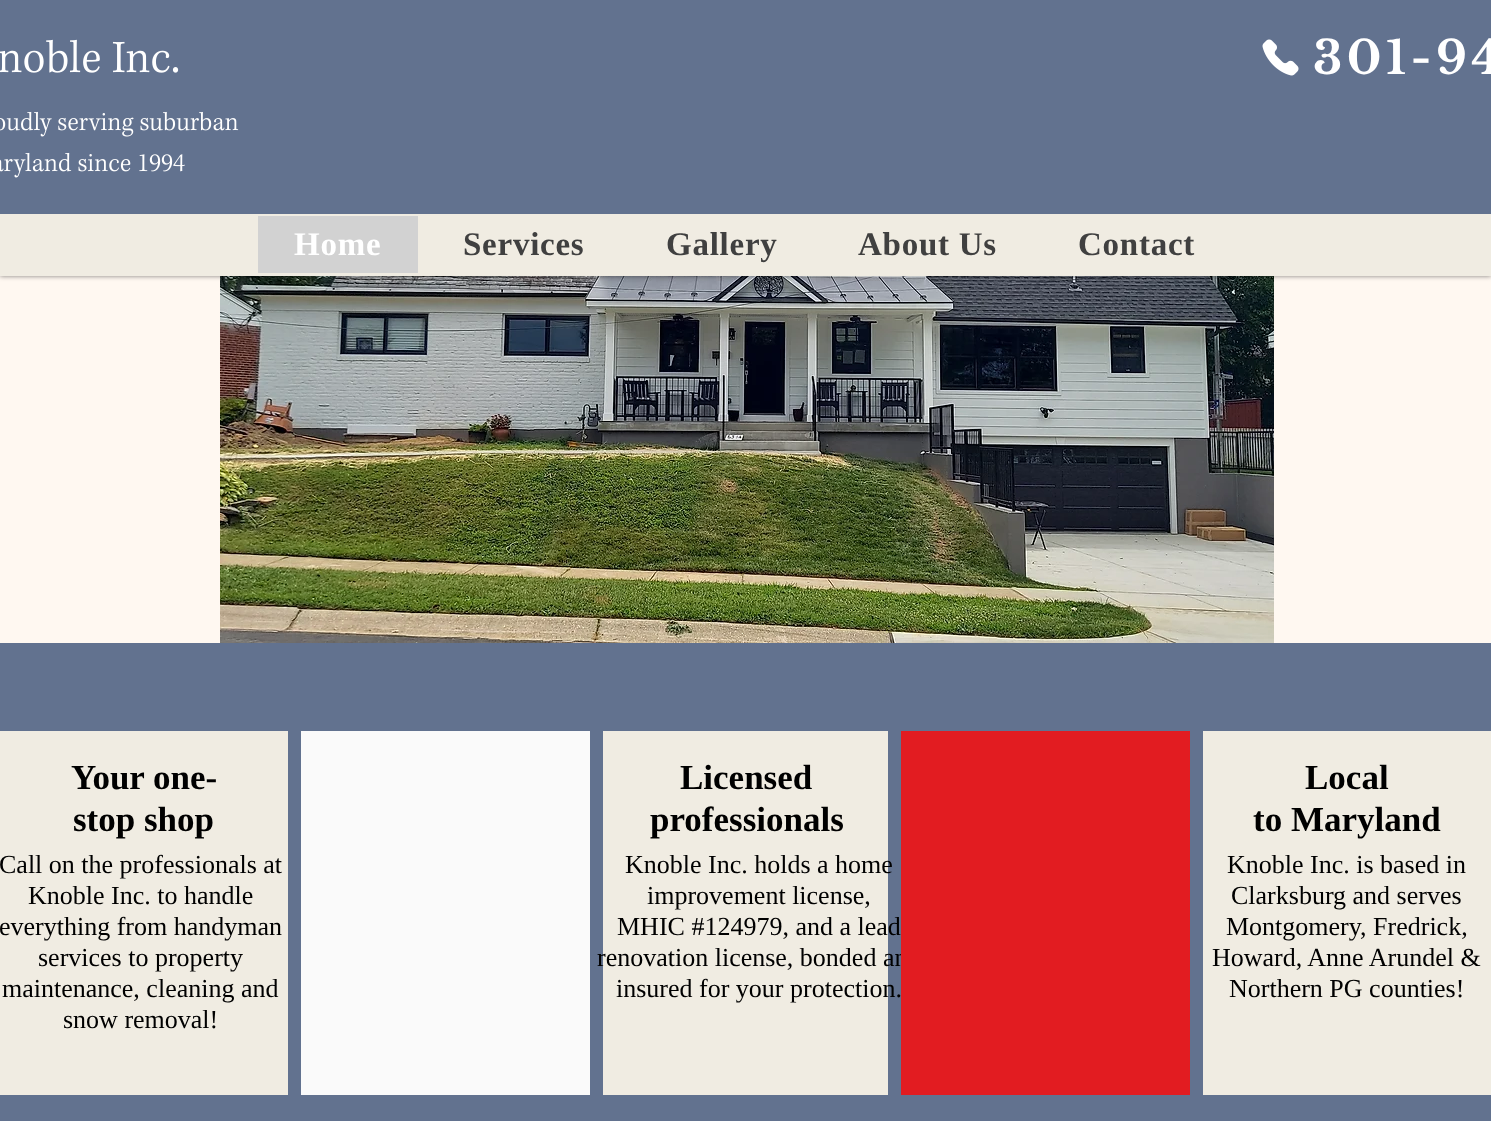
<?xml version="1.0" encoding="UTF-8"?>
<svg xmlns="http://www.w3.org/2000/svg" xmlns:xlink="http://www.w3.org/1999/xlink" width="1491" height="1121">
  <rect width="100%" height="100%" fill="#fff8f1" />
  <image x="220" y="276" width="1054" height="367" xlink:href="image5.png" />
  <rect width="1491" height="276" fill="#000000" fill-opacity="0.5" filter="blur(2.5px)" />
  <rect width="1491" height="214" fill="#62728f" />
  <image x="0" y="39" width="179" height="34" xlink:href="image1.png" />
  <image x="1262" y="39" width="37" height="37" xlink:href="image2.png" />
  <image x="0" y="111" width="239" height="26" xlink:href="image3.png" />
  <image x="0" y="152" width="185" height="26" xlink:href="image4.png" />
  <rect y="214" width="1491" height="62" fill="#f0ece2" />
  <rect x="258" y="216" width="160" height="57" fill="#d2d2d2" />
  <rect y="643" width="1491" height="478" fill="#62728f" />
  <rect y="731" width="288" height="364" fill="#f0ece2" />
  <rect x="301" y="731" width="289" height="364" fill="#fafafa" />
  <rect x="603" y="731" width="285" height="364" fill="#f0ece2" />
  <rect x="1203" y="731" width="288" height="364" fill="#f0ece2" />
  <text x="1313" y="74" style="font-family: Libre Baskerville; font-size: 46px; font-weight: bold; letter-spacing: 4.5px; fill: #ffffff">301-94</text>
  <text x="294" y="255" style="font-family: Liberation Serif; font-size: 33px; font-weight: bold; letter-spacing: 0.75px; fill: #ffffff">Home</text>
  <text x="463" y="255" style="font-family: Liberation Serif; font-size: 33px; font-weight: bold; letter-spacing: 0.75px; fill: #404040">Services</text>
  <text x="666" y="255" style="font-family: Liberation Serif; font-size: 33px; font-weight: bold; letter-spacing: 0.75px; fill: #404040">Gallery</text>
  <text x="858" y="255" style="font-family: Liberation Serif; font-size: 33px; font-weight: bold; letter-spacing: 0.75px; fill: #404040">About Us</text>
  <text x="1078" y="255" style="font-family: Liberation Serif; font-size: 33px; font-weight: bold; letter-spacing: 0.75px; fill: #404040">Contact</text>
  <text x="71" y="789" style="font-family: Liberation Serif; font-size: 35px; font-weight: bold; fill: #000000">Your one-</text>
  <text x="73" y="831" style="font-family: Liberation Serif; font-size: 35px; font-weight: bold; fill: #000000">stop shop</text>
  <text x="-1" y="873" style="font-family: Liberation Serif; font-size: 26px; fill: #000000">Call on the professionals at</text>
  <text x="28" y="904" style="font-family: Liberation Serif; font-size: 26px; fill: #000000">Knoble Inc. to handle</text>
  <text x="-1" y="935" style="font-family: Liberation Serif; font-size: 26px; fill: #000000">everything from handyman</text>
  <text x="38" y="966" style="font-family: Liberation Serif; font-size: 26px; fill: #000000">services to property</text>
  <text x="2" y="997" style="font-family: Liberation Serif; font-size: 26px; fill: #000000">maintenance, cleaning and</text>
  <text x="63" y="1028" style="font-family: Liberation Serif; font-size: 26px; fill: #000000">snow removal!</text>
  <text x="680" y="789" style="font-family: Liberation Serif; font-size: 35px; font-weight: bold; fill: #000000">Licensed</text>
  <text x="650" y="831" style="font-family: Liberation Serif; font-size: 35px; font-weight: bold; fill: #000000">professionals</text>
  <text x="625" y="873" style="font-family: Liberation Serif; font-size: 26px; fill: #000000">Knoble Inc. holds a home</text>
  <text x="647" y="904" style="font-family: Liberation Serif; font-size: 26px; fill: #000000">improvement license,</text>
  <text x="617" y="935" style="font-family: Liberation Serif; font-size: 26px; fill: #000000">MHIC #124979, and a lead</text>
  <text x="597" y="966" style="font-family: Liberation Serif; font-size: 26px; fill: #000000">renovation license, bonded an</text>
  <text x="616" y="997" style="font-family: Liberation Serif; font-size: 26px; fill: #000000">insured for your protection.</text>
  <rect x="901" y="731" width="289" height="364" fill="#e21c21" />
  <text x="1305" y="789" style="font-family: Liberation Serif; font-size: 35px; font-weight: bold; fill: #000000">Local</text>
  <text x="1253" y="831" style="font-family: Liberation Serif; font-size: 35px; font-weight: bold; fill: #000000">to Maryland</text>
  <text x="1227" y="873" style="font-family: Liberation Serif; font-size: 26px; fill: #000000">Knoble Inc. is based in</text>
  <text x="1231" y="904" style="font-family: Liberation Serif; font-size: 26px; fill: #000000">Clarksburg and serves</text>
  <text x="1226" y="935" style="font-family: Liberation Serif; font-size: 26px; fill: #000000">Montgomery, Fredrick,</text>
  <text x="1212" y="966" style="font-family: Liberation Serif; font-size: 26px; fill: #000000">Howard, Anne Arundel &amp;</text>
  <text x="1229" y="997" style="font-family: Liberation Serif; font-size: 26px; fill: #000000">Northern PG counties!</text>
</svg>
